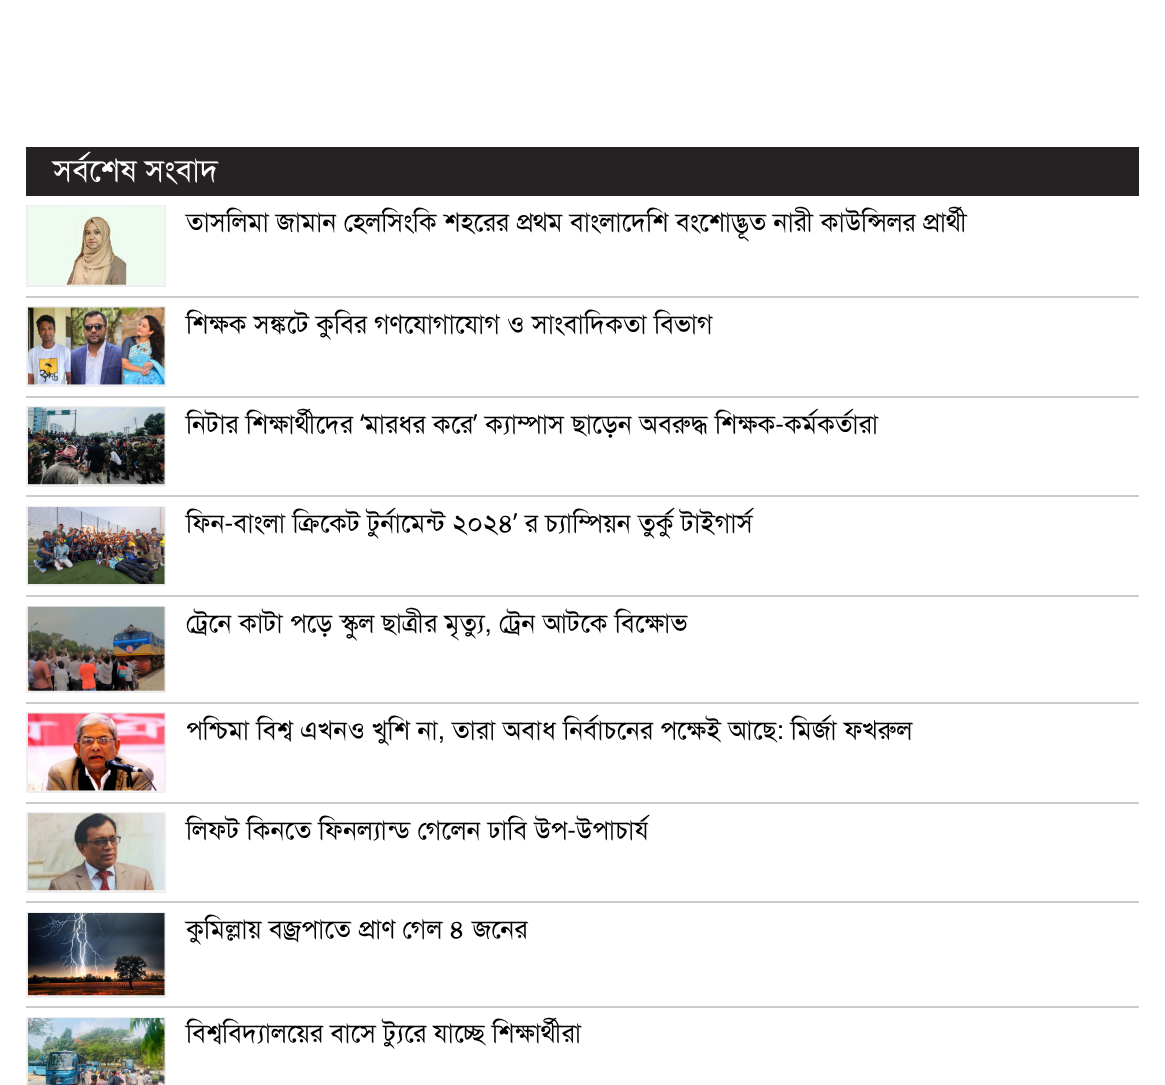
<?xml version="1.0" encoding="UTF-8"?>
<svg xmlns="http://www.w3.org/2000/svg" xmlns:xlink="http://www.w3.org/1999/xlink" width="1165" height="1085">
  <rect width="100%" height="100%" fill="#ffffff" />
  <rect x="26" y="147" width="1113" height="49" fill="#262223" />
  <rect x="26" y="296" width="1113" height="2" fill="#cccccc" />
  <rect x="27" y="206" width="138" height="80" fill="none" stroke="#eeeeee" stroke-width="2" />
  <image x="28" y="206" width="137" height="79" xlink:href="image1.png" />
  <rect x="26" y="396" width="1113" height="2" fill="#cccccc" />
  <rect x="27" y="307" width="138" height="79" fill="none" stroke="#eeeeee" stroke-width="2" />
  <image x="28" y="307" width="137" height="78" xlink:href="image2.png" />
  <rect x="26" y="495" width="1113" height="2" fill="#cccccc" />
  <rect x="27" y="407" width="138" height="79" fill="none" stroke="#eeeeee" stroke-width="2" />
  <image x="28" y="407" width="137" height="78" xlink:href="image3.png" />
  <rect x="26" y="595" width="1113" height="2" fill="#cccccc" />
  <rect x="27" y="507" width="138" height="78" fill="none" stroke="#eeeeee" stroke-width="2" />
  <image x="28" y="507" width="137" height="77" xlink:href="image4.png" />
  <rect x="26" y="702" width="1113" height="2" fill="#cccccc" />
  <rect x="27" y="607" width="138" height="85" fill="none" stroke="#eeeeee" stroke-width="2" />
  <image x="28" y="606" width="137" height="85" xlink:href="image5.png" />
  <rect x="26" y="802" width="1113" height="2" fill="#cccccc" />
  <rect x="27" y="713" width="138" height="79" fill="none" stroke="#eeeeee" stroke-width="2" />
  <image x="28" y="713" width="137" height="78" xlink:href="image6.png" />
  <rect x="26" y="901" width="1113" height="2" fill="#cccccc" />
  <rect x="27" y="813" width="138" height="79" fill="none" stroke="#eeeeee" stroke-width="2" />
  <image x="28" y="813" width="137" height="78" xlink:href="image7.png" />
  <rect x="26" y="1006" width="1113" height="2" fill="#cccccc" />
  <rect x="27" y="913" width="138" height="84" fill="none" stroke="#eeeeee" stroke-width="2" />
  <image x="28" y="913" width="137" height="83" xlink:href="image8.png" />
  <rect x="27" y="1018" width="138" height="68" fill="none" stroke="#eeeeee" stroke-width="2" />
  <image x="28" y="1018" width="137" height="67" xlink:href="image9.png" />
  <text x="53" y="181" style="font-family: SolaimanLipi; font-size: 31.5px; fill: #ffffff">সর্বশেষ সংবাদ</text>
  <text x="186" y="231" style="font-family: SolaimanLipi; font-size: 26.25px; fill: #000000">তাসলিমা জামান হেলসিংকি শহরের প্রথম বাংলাদেশি বংশোদ্ভূত নারী কাউন্সিলর প্রার্থী</text>
  <text x="186" y="333" style="font-family: SolaimanLipi; font-size: 26.25px; fill: #000000">শিক্ষক সঙ্কটে কুবির গণযোগাযোগ ও সাংবাদিকতা বিভাগ</text>
  <text x="186" y="433" style="font-family: SolaimanLipi; font-size: 26.25px; fill: #000000">নিটার শিক্ষার্থীদের</text>
  <text x="485" y="433" style="font-family: SolaimanLipi; font-size: 26.25px; fill: #000000">ক্যাম্পাস ছাড়েন অবরুদ্ধ শিক্ষক-কর্মকর্তারা</text>
  <text x="360" y="433" style="font-family: Open Sans; font-size: 26.25px; fill: #000000">‘</text>
  <text x="364" y="433" style="font-family: SolaimanLipi; font-size: 26.25px; fill: #000000">মারধর করে</text>
  <text x="473" y="433" style="font-family: Open Sans; font-size: 26.25px; fill: #000000">’</text>
  <text x="186" y="532" style="font-family: SolaimanLipi; font-size: 26.25px; fill: #000000">ফিন-বাংলা ক্রিকেট টুর্নামেন্ট ২০২৪</text>
  <text x="513" y="532" style="font-family: Open Sans; font-size: 26.25px; fill: #000000">’</text>
  <text x="525" y="532" style="font-family: SolaimanLipi; font-size: 26.25px; fill: #000000">র চ্যাম্পিয়ন তুর্কু টাইগার্স</text>
  <text x="186" y="632" style="font-family: SolaimanLipi; font-size: 26.25px; fill: #000000">ট্রেনে কাটা পড়ে স্কুল ছাত্রীর মৃত্যু, ট্রেন আটকে বিক্ষোভ</text>
  <text x="186" y="739" style="font-family: SolaimanLipi; font-size: 26.25px; fill: #000000">পশ্চিমা বিশ্ব এখনও খুশি না, তারা অবাধ নির্বাচনের পক্ষেই আছে: মির্জা ফখরুল</text>
  <text x="186" y="839" style="font-family: SolaimanLipi; font-size: 26.25px; fill: #000000">লিফট কিনতে ফিনল্যান্ড গেলেন ঢাবি উপ-উপাচার্য</text>
  <text x="186" y="938" style="font-family: SolaimanLipi; font-size: 26.25px; fill: #000000">কুমিল্লায় বজ্রপাতে প্রাণ গেল ৪ জনের</text>
  <text x="186" y="1042" style="font-family: SolaimanLipi; font-size: 26.25px; fill: #000000">বিশ্ববিদ্যালয়ের বাসে ট্যুরে যাচ্ছে শিক্ষার্থীরা</text>
</svg>
